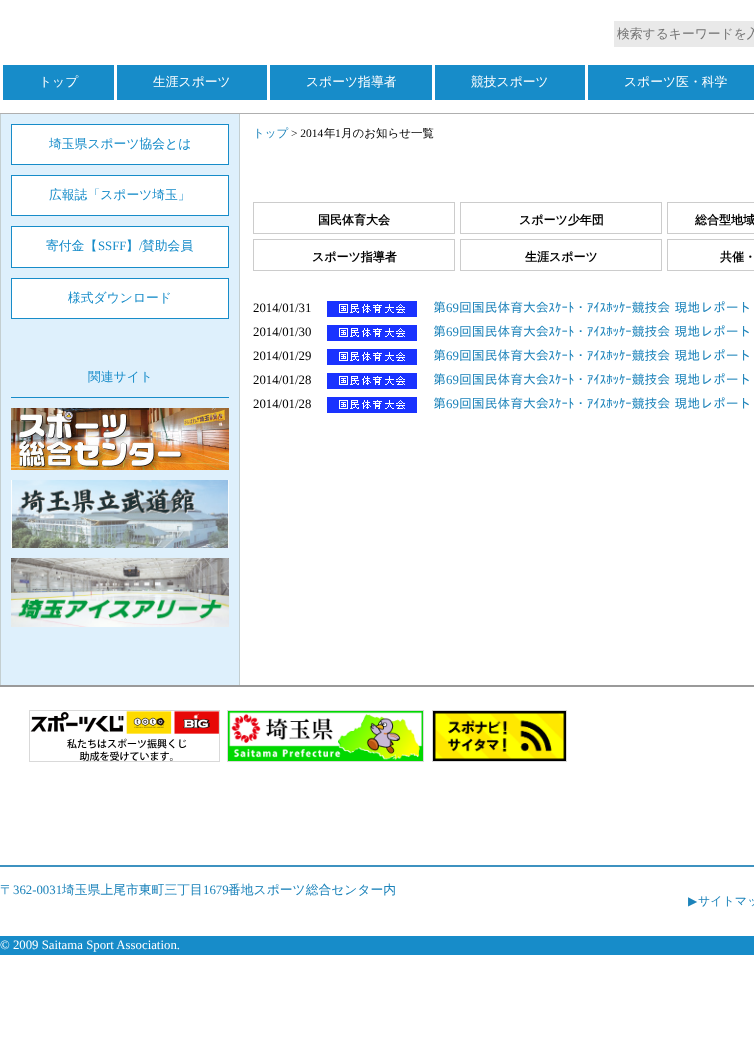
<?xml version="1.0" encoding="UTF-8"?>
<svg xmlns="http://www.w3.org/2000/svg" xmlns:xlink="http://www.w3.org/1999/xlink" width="754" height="1043">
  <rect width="100%" height="100%" fill="#ffffff" />
  <rect x="614" y="21" width="140" height="26" fill="#e9e9e9" />
  <rect x="3" y="65" width="111" height="35" fill="#178cc9" />
  <rect x="117" y="65" width="150" height="35" fill="#178cc9" />
  <rect x="270" y="65" width="162" height="35" fill="#178cc9" />
  <rect x="435" y="65" width="150" height="35" fill="#178cc9" />
  <rect x="588" y="65" width="166" height="35" fill="#178cc9" />
  <rect y="113" width="754" height="1" fill="#afafaf" />
  <rect y="685" width="754" height="2" fill="#9a9a9a" />
  <rect x="1" y="114" width="238" height="571" fill="#def0fc" />
  <rect x="239" y="114" width="1" height="571" fill="#c4cfd1" />
  <rect y="114" width="1" height="571" fill="#c4cfd1" />
  <rect x="11.5" y="124.5" width="217" height="40" fill="#ffffff" stroke="#178cc9" />
  <rect x="11.5" y="175.5" width="217" height="40" fill="#ffffff" stroke="#178cc9" />
  <rect x="11.5" y="226.5" width="217" height="41" fill="#ffffff" stroke="#178cc9" />
  <rect x="11.5" y="278.5" width="217" height="40" fill="#ffffff" stroke="#178cc9" />
  <rect x="11" y="397" width="218" height="1" fill="#178cc9" />
  <image x="11" y="408" width="218" height="62" xlink:href="image1.png" />
  <image x="11" y="480" width="218" height="68" xlink:href="image2.png" />
  <image x="11" y="558" width="218" height="69" xlink:href="image3.png" />
  <rect x="253.5" y="202.5" width="201" height="31" fill="none" stroke="#cccccc" />
  <rect x="460.5" y="202.5" width="201" height="31" fill="none" stroke="#cccccc" />
  <rect x="667.5" y="202.5" width="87" height="31" fill="none" stroke="#cccccc" />
  <rect x="253.5" y="239.5" width="201" height="31" fill="none" stroke="#cccccc" />
  <rect x="460.5" y="239.5" width="201" height="31" fill="none" stroke="#cccccc" />
  <rect x="667.5" y="239.5" width="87" height="31" fill="none" stroke="#cccccc" />
  <image x="327" y="301" width="90" height="16" xlink:href="image4.png" />
  <image x="327" y="325" width="90" height="16" xlink:href="image4.png" />
  <image x="327" y="349" width="90" height="16" xlink:href="image4.png" />
  <image x="327" y="373" width="90" height="16" xlink:href="image4.png" />
  <image x="327" y="397" width="90" height="16" xlink:href="image4.png" />
  <rect x="29.5" y="710.5" width="190" height="51" fill="none" stroke="#d9d9d9" />
  <rect x="227.5" y="710.5" width="196" height="51" fill="none" stroke="#d9d9d9" />
  <rect x="432.5" y="710.5" width="134" height="51" fill="none" stroke="#d9d9d9" />
  <image x="30" y="711" width="189" height="50" xlink:href="image5.png" />
  <image x="228" y="711" width="195" height="50" xlink:href="image6.png" />
  <image x="433" y="711" width="133" height="50" xlink:href="image7.png" />
  <rect y="865" width="754" height="2" fill="#3e92c0" />
  <rect y="936" width="754" height="19" fill="#178cc9" />
  <text x="617" y="38" style="font-family: WenQuanYi Zen Hei; font-size: 12.8px; font-weight: 500; fill: #757575">検索するキーワードを入</text>
  <text x="39" y="86" style="font-family: WenQuanYi Zen Hei; font-size: 12.8px; font-weight: 500; fill: #ffffff">トップ</text>
  <text x="153" y="86" style="font-family: WenQuanYi Zen Hei; font-size: 12.8px; font-weight: 500; fill: #ffffff">生涯スポーツ</text>
  <text x="306" y="86" style="font-family: WenQuanYi Zen Hei; font-size: 12.8px; font-weight: 500; fill: #ffffff">スポーツ指導者</text>
  <text x="471" y="86" style="font-family: WenQuanYi Zen Hei; font-size: 12.8px; font-weight: 500; fill: #ffffff">競技スポーツ</text>
  <text x="624" y="86" style="font-family: WenQuanYi Zen Hei; font-size: 12.8px; font-weight: 500; fill: #ffffff">スポーツ医・科学</text>
  <text x="49" y="148" style="font-family: WenQuanYi Zen Hei; font-size: 12.8px; font-weight: 500; fill: #178cc9">埼玉県スポーツ協会とは</text>
  <text x="49" y="199" style="font-family: WenQuanYi Zen Hei; font-size: 12.8px; font-weight: 500; fill: #178cc9">広報誌「スポーツ埼玉」</text>
  <text x="46" y="250" style="font-family: WenQuanYi Zen Hei; font-size: 12.8px; font-weight: 500; fill: #178cc9">寄付金【</text>
  <text x="98" y="250" style="font-family: Liberation Serif; font-size: 12.8px; fill: #178cc9">SSFF</text>
  <text x="126" y="250" style="font-family: WenQuanYi Zen Hei; font-size: 12.8px; font-weight: 500; fill: #178cc9">】</text>
  <text x="139" y="250" style="font-family: Liberation Serif; font-size: 12.8px; fill: #178cc9">/</text>
  <text x="142" y="250" style="font-family: WenQuanYi Zen Hei; font-size: 12.8px; font-weight: 500; fill: #178cc9">賛助会員</text>
  <text x="68" y="302" style="font-family: WenQuanYi Zen Hei; font-size: 12.8px; font-weight: 500; fill: #178cc9">様式ダウンロード</text>
  <text x="88" y="381" style="font-family: WenQuanYi Zen Hei; font-size: 12.8px; font-weight: 500; fill: #178cc9">関連サイト</text>
  <text x="253" y="137" style="font-family: WenQuanYi Zen Hei; font-size: 11.5px; font-weight: 500; fill: #1c83ba">トップ</text>
  <text x="291" y="137" style="font-family: Liberation Serif; font-size: 11.5px; fill: #000000">&gt; 2014</text>
  <text x="324" y="137" style="font-family: WenQuanYi Zen Hei; font-size: 11.5px; font-weight: 500; fill: #000000">年</text>
  <text x="335" y="137" style="font-family: Liberation Serif; font-size: 11.5px; fill: #000000">1</text>
  <text x="341" y="137" style="font-family: WenQuanYi Zen Hei; font-size: 11.5px; font-weight: 500; fill: #000000">月のお知らせ一覧</text>
  <text x="318" y="224" style="font-family: WenQuanYi Zen Hei; font-size: 12px; font-weight: bold; fill: #000000">国民体育大会</text>
  <text x="519" y="224" style="font-family: WenQuanYi Zen Hei; font-size: 12px; font-weight: bold; fill: #000000">スポーツ少年団</text>
  <text x="695" y="224" style="font-family: WenQuanYi Zen Hei; font-size: 12px; font-weight: bold; fill: #000000">総合型地域</text>
  <text x="312" y="261" style="font-family: WenQuanYi Zen Hei; font-size: 12px; font-weight: bold; fill: #000000">スポーツ指導者</text>
  <text x="525" y="261" style="font-family: WenQuanYi Zen Hei; font-size: 12px; font-weight: bold; fill: #000000">生涯スポーツ</text>
  <text x="720" y="261" style="font-family: WenQuanYi Zen Hei; font-size: 12px; font-weight: bold; fill: #000000">共催・</text>
  <text x="253" y="312" style="font-family: Liberation Serif; font-size: 12.8px; fill: #000000">2014/01/31</text>
  <text x="433" y="312" style="font-family: IPAGothic; font-size: 12.8px; fill: #1c83ba">第</text>
  <text x="446" y="312" style="font-family: Liberation Serif; font-size: 12.8px; fill: #1c83ba">69</text>
  <text x="459" y="312" word-spacing="-2" style="font-family: IPAGothic; font-size: 12.8px; fill: #1c83ba">回国民体育大会ｽｹｰﾄ・ｱｲｽﾎｯｹｰ競技会 現地レポート</text>
  <text x="253" y="336" style="font-family: Liberation Serif; font-size: 12.8px; fill: #000000">2014/01/30</text>
  <text x="433" y="336" style="font-family: IPAGothic; font-size: 12.8px; fill: #1c83ba">第</text>
  <text x="446" y="336" style="font-family: Liberation Serif; font-size: 12.8px; fill: #1c83ba">69</text>
  <text x="459" y="336" word-spacing="-2" style="font-family: IPAGothic; font-size: 12.8px; fill: #1c83ba">回国民体育大会ｽｹｰﾄ・ｱｲｽﾎｯｹｰ競技会 現地レポート</text>
  <text x="253" y="360" style="font-family: Liberation Serif; font-size: 12.8px; fill: #000000">2014/01/29</text>
  <text x="433" y="360" style="font-family: IPAGothic; font-size: 12.8px; fill: #1c83ba">第</text>
  <text x="446" y="360" style="font-family: Liberation Serif; font-size: 12.8px; fill: #1c83ba">69</text>
  <text x="459" y="360" word-spacing="-2" style="font-family: IPAGothic; font-size: 12.8px; fill: #1c83ba">回国民体育大会ｽｹｰﾄ・ｱｲｽﾎｯｹｰ競技会 現地レポート</text>
  <text x="253" y="384" style="font-family: Liberation Serif; font-size: 12.8px; fill: #000000">2014/01/28</text>
  <text x="433" y="384" style="font-family: IPAGothic; font-size: 12.8px; fill: #1c83ba">第</text>
  <text x="446" y="384" style="font-family: Liberation Serif; font-size: 12.8px; fill: #1c83ba">69</text>
  <text x="459" y="384" word-spacing="-2" style="font-family: IPAGothic; font-size: 12.8px; fill: #1c83ba">回国民体育大会ｽｹｰﾄ・ｱｲｽﾎｯｹｰ競技会 現地レポート</text>
  <text x="253" y="408" style="font-family: Liberation Serif; font-size: 12.8px; fill: #000000">2014/01/28</text>
  <text x="433" y="408" style="font-family: IPAGothic; font-size: 12.8px; fill: #1c83ba">第</text>
  <text x="446" y="408" style="font-family: Liberation Serif; font-size: 12.8px; fill: #1c83ba">69</text>
  <text x="459" y="408" word-spacing="-2" style="font-family: IPAGothic; font-size: 12.8px; fill: #1c83ba">回国民体育大会ｽｹｰﾄ・ｱｲｽﾎｯｹｰ競技会 現地レポート</text>
  <text x="0" y="894" style="font-family: WenQuanYi Zen Hei; font-size: 12.8px; font-weight: 500; fill: #1c83ba">〒</text>
  <text x="13" y="894" style="font-family: Liberation Serif; font-size: 12.8px; fill: #1c83ba">362-0031</text>
  <text x="62" y="894" style="font-family: WenQuanYi Zen Hei; font-size: 12.8px; font-weight: 500; fill: #1c83ba">埼玉県上尾市東町三丁目</text>
  <text x="203" y="894" style="font-family: Liberation Serif; font-size: 12.8px; fill: #1c83ba">1679</text>
  <text x="228" y="894" style="font-family: WenQuanYi Zen Hei; font-size: 12.8px; font-weight: 500; fill: #1c83ba">番地スポーツ総合センター内</text>
  <text x="688" y="905" style="font-family: DejaVu Sans; font-size: 12px; fill: #1c83ba">▶︎</text>
  <text x="698" y="905" style="font-family: WenQuanYi Zen Hei; font-size: 12px; font-weight: 500; fill: #1c83ba">サイトマッ</text>
  <text x="0" y="949" style="font-family: Liberation Serif; font-size: 12.8px; fill: #ffffff">© 2009 Saitama Sport Association.</text>
</svg>
